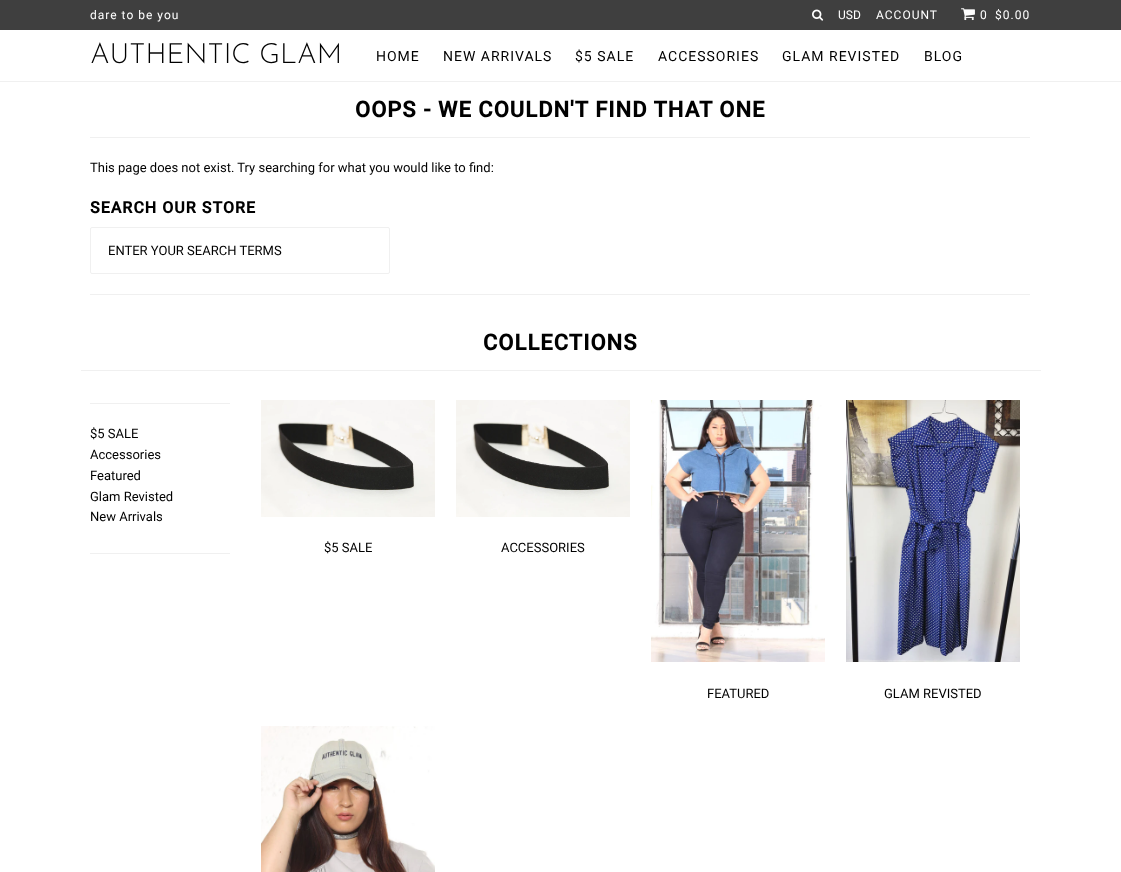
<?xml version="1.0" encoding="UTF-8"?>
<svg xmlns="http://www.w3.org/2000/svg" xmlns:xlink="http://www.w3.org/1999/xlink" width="1121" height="872">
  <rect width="100%" height="100%" fill="#ffffff" />
  <rect y="81" width="1121" height="1" fill="#f0f0f0" />
  <rect width="1121" height="30" fill="#3f3f3f" />
  <image x="812" y="9" width="12" height="12" xlink:href="image1.png" />
  <image x="961" y="8" width="14" height="13" xlink:href="image2.png" />
  <rect x="90" y="137" width="940" height="1" fill="#f0f0f0" />
  <rect x="90" y="294" width="940" height="1" fill="#f0f0f0" />
  <rect x="90.5" y="227.5" width="299" height="46" rx="1.5" fill="none" stroke="#f0f0f0" />
  <rect x="81" y="370" width="960" height="1" fill="#f0f0f0" />
  <rect x="90" y="403" width="140" height="1" fill="#f0f0f0" />
  <rect x="90" y="553" width="140" height="1" fill="#f0f0f0" />
  <image x="261" y="400" width="174" height="117" xlink:href="image3.png" />
  <image x="456" y="400" width="174" height="117" xlink:href="image4.png" />
  <image x="651" y="400" width="174" height="262" xlink:href="image5.png" />
  <image x="846" y="400" width="174" height="262" xlink:href="image6.png" />
  <image x="261" y="726" width="174" height="146" xlink:href="image7.png" />
  <text x="90" y="19" style="font-family: Roboto; font-size: 12px; letter-spacing: 1px; fill: #ffffff">dare to be you</text>
  <text x="838" y="19" style="font-family: Roboto; font-size: 12px; fill: #ffffff">USD</text>
  <text x="876" y="19" style="font-family: Roboto; font-size: 12px; letter-spacing: 1px; fill: #ffffff">ACCOUNT</text>
  <text x="980" y="19" style="font-family: Roboto; font-size: 12px; letter-spacing: 1px; fill: #ffffff">0</text>
  <text x="995" y="19" style="font-family: Roboto; font-size: 12px; letter-spacing: 1px; fill: #ffffff">$0.00</text>
  <text x="90" y="63" style="font-family: Josefin Sans; font-size: 28px; font-weight: 300; fill: #000000">AUTHENTIC GLAM</text>
  <text x="376" y="61" style="font-family: Roboto; font-size: 14px; letter-spacing: 1px; fill: #000000">HOME</text>
  <text x="443" y="61" style="font-family: Roboto; font-size: 14px; letter-spacing: 1px; fill: #000000">NEW ARRIVALS</text>
  <text x="575" y="61" style="font-family: Roboto; font-size: 14px; letter-spacing: 1px; fill: #000000">$5 SALE</text>
  <text x="658" y="61" style="font-family: Roboto; font-size: 14px; letter-spacing: 1px; fill: #000000">ACCESSORIES</text>
  <text x="782" y="61" style="font-family: Roboto; font-size: 14px; letter-spacing: 1px; fill: #000000">GLAM REVISTED</text>
  <text x="924" y="61" style="font-family: Roboto; font-size: 14px; letter-spacing: 1px; fill: #000000">BLOG</text>
  <text x="355" y="117" style="font-family: Roboto; font-size: 22px; font-weight: bold; letter-spacing: 1px; fill: #000000">OOPS - WE COULDN'T FIND THAT ONE</text>
  <text x="90" y="172" style="font-family: Roboto; font-size: 13px; fill: #000000">This page does not exist. Try searching for what you would like to find:</text>
  <text x="90" y="213" style="font-family: Roboto; font-size: 16px; font-weight: bold; letter-spacing: 1px; fill: #000000">SEARCH OUR STORE</text>
  <text x="108" y="255" style="font-family: Roboto; font-size: 13px; fill: #000000">ENTER YOUR SEARCH TERMS</text>
  <text x="483" y="350" style="font-family: Roboto; font-size: 22px; font-weight: bold; letter-spacing: 1px; fill: #000000">COLLECTIONS</text>
  <text x="90" y="438" style="font-family: Roboto; font-size: 13px; fill: #000000">$5 SALE</text>
  <text x="90" y="459" style="font-family: Roboto; font-size: 13px; fill: #000000">Accessories</text>
  <text x="90" y="480" style="font-family: Roboto; font-size: 13px; fill: #000000">Featured</text>
  <text x="90" y="501" style="font-family: Roboto; font-size: 13px; fill: #000000">Glam Revisted</text>
  <text x="90" y="521" style="font-family: Roboto; font-size: 13px; fill: #000000">New Arrivals</text>
  <text x="324" y="552" style="font-family: Roboto; font-size: 13px; fill: #000000">$5 SALE</text>
  <text x="501" y="552" style="font-family: Roboto; font-size: 13px; fill: #000000">ACCESSORIES</text>
  <text x="707" y="698" style="font-family: Roboto; font-size: 13px; fill: #000000">FEATURED</text>
  <text x="884" y="698" style="font-family: Roboto; font-size: 13px; fill: #000000">GLAM REVISTED</text>
</svg>
